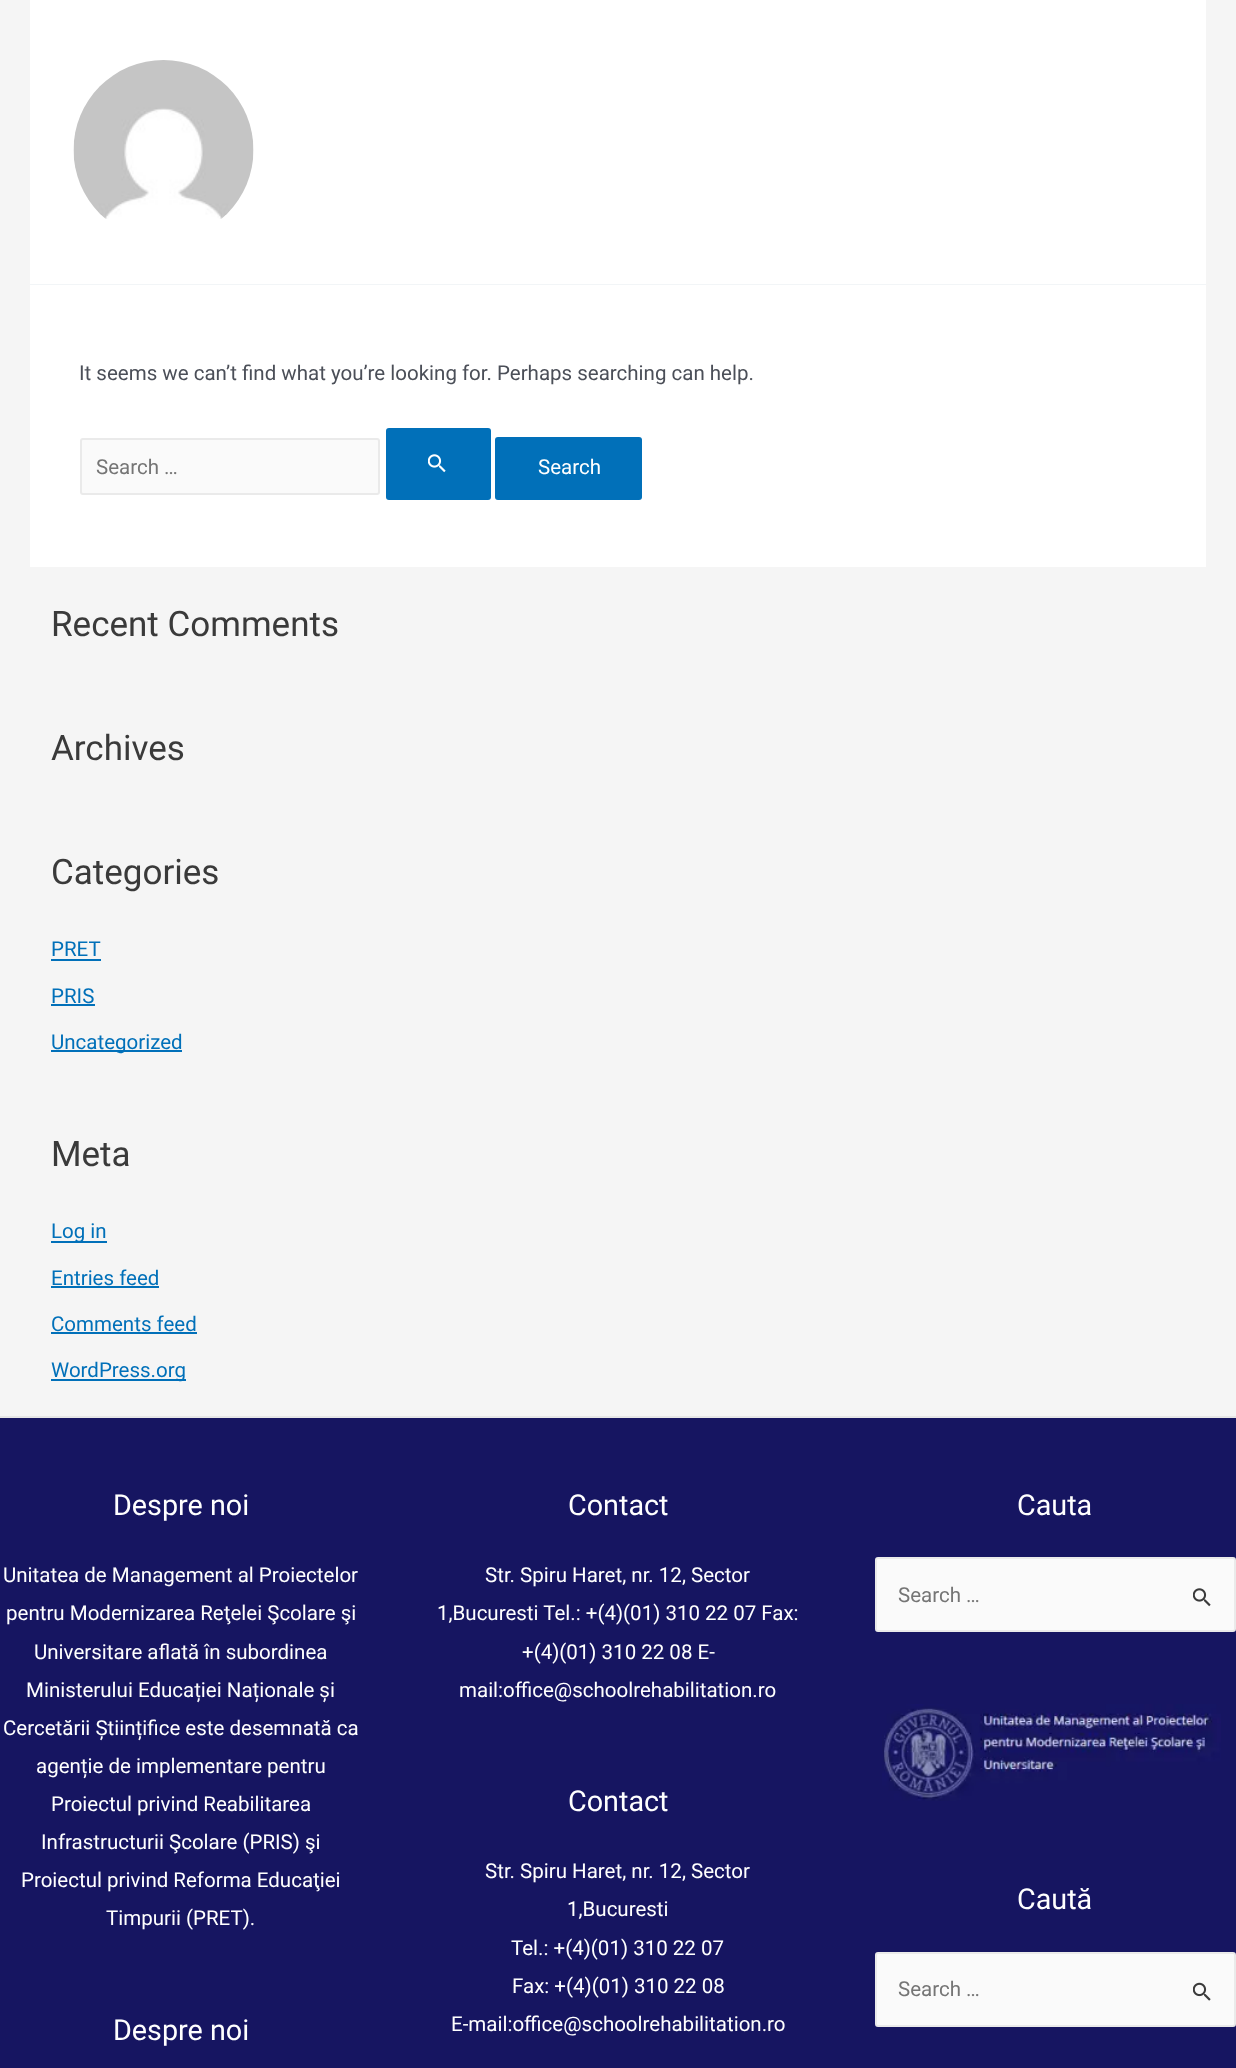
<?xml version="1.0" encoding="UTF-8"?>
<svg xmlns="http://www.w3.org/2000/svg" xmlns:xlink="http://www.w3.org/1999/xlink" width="1236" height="2068">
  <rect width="100%" height="100%" fill="#f5f5f5" />
  <rect x="30" width="1176" height="284" fill="#ffffff" />
  <rect x="30" y="284" width="1176" height="1" fill="#f2f5f7" />
  <image x="73" y="60" width="181" height="159" xlink:href="image1.png" />
  <rect x="30" y="285" width="1176" height="282" fill="#ffffff" />
  <rect x="81" y="439" width="298" height="55" rx="2" fill="#fafafa" stroke="#eaeaea" stroke-width="2" />
  <rect x="386" y="428" width="105" height="72" rx="3" fill="#0170b9" />
  <image x="428" y="454" width="18" height="19" xlink:href="image2.png" />
  <rect x="495" y="437" width="147" height="63" rx="3" fill="#0170b9" />
  <rect x="51" y="959" width="50" height="2" fill="#0170b9" />
  <rect x="51" y="1004" width="44" height="2" fill="#0170b9" />
  <rect x="51" y="1050" width="131" height="2" fill="#0170b9" />
  <rect x="51" y="1241" width="56" height="2" fill="#0170b9" />
  <rect x="51" y="1286" width="108" height="2" fill="#0170b9" />
  <rect x="51" y="1332" width="146" height="2" fill="#0170b9" />
  <rect x="51" y="1379" width="135" height="2" fill="#0170b9" />
  <rect y="1418" width="1236" height="650" fill="#161561" />
  <rect y="1416" width="1236" height="2" fill="#e6e6e6" />
  <rect x="876" y="1558" width="359" height="73" rx="2" fill="#fafafa" stroke="#eaeaea" stroke-width="2" />
  <image x="1193" y="1588" width="18" height="19" xlink:href="image3.png" />
  <image x="882" y="1704" width="339" height="97" xlink:href="image4.png" />
  <rect x="876" y="1953" width="359" height="73" rx="2" fill="#fafafa" stroke="#eaeaea" stroke-width="2" />
  <image x="1193" y="1982" width="18" height="19" xlink:href="image5.png" />
  <text x="79" y="380" style="font-family: Roboto; font-size: 20.5px; fill: #4b4f58">It seems we can’t find what you’re looking for. Perhaps searching can help.</text>
  <text x="96" y="474" style="font-family: Roboto; font-size: 20.5px; fill: #757575">Search …</text>
  <text x="538" y="474" style="font-family: Roboto; font-size: 20.5px; fill: #ffffff">Search</text>
  <text x="51" y="636" style="font-family: Roboto; font-size: 35px; fill: #3a3a3a">Recent Comments</text>
  <text x="51" y="760" style="font-family: Roboto; font-size: 35px; fill: #3a3a3a">Archives</text>
  <text x="51" y="884" style="font-family: Roboto; font-size: 35px; fill: #3a3a3a">Categories</text>
  <text x="51" y="956" style="font-family: Roboto; font-size: 20.5px; fill: #0170b9">PRET</text>
  <text x="51" y="1003" style="font-family: Roboto; font-size: 20.5px; fill: #0170b9">PRIS</text>
  <text x="51" y="1049" style="font-family: Roboto; font-size: 20.5px; fill: #0170b9">Uncategorized</text>
  <text x="51" y="1166" style="font-family: Roboto; font-size: 35px; fill: #3a3a3a">Meta</text>
  <text x="51" y="1238" style="font-family: Roboto; font-size: 20.5px; fill: #0170b9">Log in</text>
  <text x="51" y="1285" style="font-family: Roboto; font-size: 20.5px; fill: #0170b9">Entries feed</text>
  <text x="51" y="1331" style="font-family: Roboto; font-size: 20.5px; fill: #0170b9">Comments feed</text>
  <text x="51" y="1377" style="font-family: Roboto; font-size: 20.5px; fill: #0170b9">WordPress.org</text>
  <text x="113" y="1515" style="font-family: Roboto; font-size: 28.75px; fill: #ffffff">Despre noi</text>
  <text x="3" y="1582" style="font-family: Roboto; font-size: 20.5px; fill: #ffffff">Unitatea de Management al Proiectelor</text>
  <text x="6" y="1620" style="font-family: Roboto; font-size: 20.5px; fill: #ffffff">pentru Modernizarea Reţelei Şcolare şi</text>
  <text x="34" y="1659" style="font-family: Roboto; font-size: 20.5px; fill: #ffffff">Universitare aflată în subordinea</text>
  <text x="26" y="1697" style="font-family: Roboto; font-size: 20.5px; fill: #ffffff">Ministerului Educației Naționale și</text>
  <text x="3" y="1735" style="font-family: Roboto; font-size: 20.5px; fill: #ffffff">Cercetării Științifice este desemnată ca</text>
  <text x="36" y="1773" style="font-family: Roboto; font-size: 20.5px; fill: #ffffff">agenție de implementare pentru</text>
  <text x="51" y="1811" style="font-family: Roboto; font-size: 20.5px; fill: #ffffff">Proiectul privind Reabilitarea</text>
  <text x="41" y="1849" style="font-family: Roboto; font-size: 20.5px; fill: #ffffff">Infrastructurii Şcolare (PRIS) şi</text>
  <text x="21" y="1887" style="font-family: Roboto; font-size: 20.5px; fill: #ffffff">Proiectul privind Reforma Educaţiei</text>
  <text x="106" y="1925" style="font-family: Roboto; font-size: 20.5px; fill: #ffffff">Timpurii (PRET).</text>
  <text x="113" y="2040" style="font-family: Roboto; font-size: 28.75px; fill: #ffffff">Despre noi</text>
  <text x="568" y="1515" style="font-family: Roboto; font-size: 28.75px; fill: #ffffff">Contact</text>
  <text x="485" y="1582" style="font-family: Roboto; font-size: 20.5px; fill: #ffffff">Str. Spiru Haret, nr. 12, Sector</text>
  <text x="437" y="1620" style="font-family: Roboto; font-size: 20.5px; fill: #ffffff">1,Bucuresti Tel.: +(4)(01) 310 22 07 Fax:</text>
  <text x="522" y="1659" style="font-family: Roboto; font-size: 20.5px; fill: #ffffff">+(4)(01) 310 22 08 E-</text>
  <text x="459" y="1697" style="font-family: Roboto; font-size: 20.5px; fill: #ffffff">mail:office@schoolrehabilitation.ro</text>
  <text x="568" y="1811" style="font-family: Roboto; font-size: 28.75px; fill: #ffffff">Contact</text>
  <text x="485" y="1878" style="font-family: Roboto; font-size: 20.5px; fill: #ffffff">Str. Spiru Haret, nr. 12, Sector</text>
  <text x="567" y="1916" style="font-family: Roboto; font-size: 20.5px; fill: #ffffff">1,Bucuresti</text>
  <text x="511" y="1955" style="font-family: Roboto; font-size: 20.5px; fill: #ffffff">Tel.: +(4)(01) 310 22 07</text>
  <text x="512" y="1993" style="font-family: Roboto; font-size: 20.5px; fill: #ffffff">Fax: +(4)(01) 310 22 08</text>
  <text x="451" y="2031" style="font-family: Roboto; font-size: 20.5px; fill: #ffffff">E-mail:office@schoolrehabilitation.ro</text>
  <text x="1017" y="1515" style="font-family: Roboto; font-size: 28.75px; fill: #ffffff">Cauta</text>
  <text x="898" y="1602" style="font-family: Roboto; font-size: 20.5px; fill: #757575">Search …</text>
  <text x="1017" y="1909" style="font-family: Roboto; font-size: 28.75px; fill: #ffffff">Caută</text>
  <text x="898" y="1996" style="font-family: Roboto; font-size: 20.5px; fill: #757575">Search …</text>
</svg>
